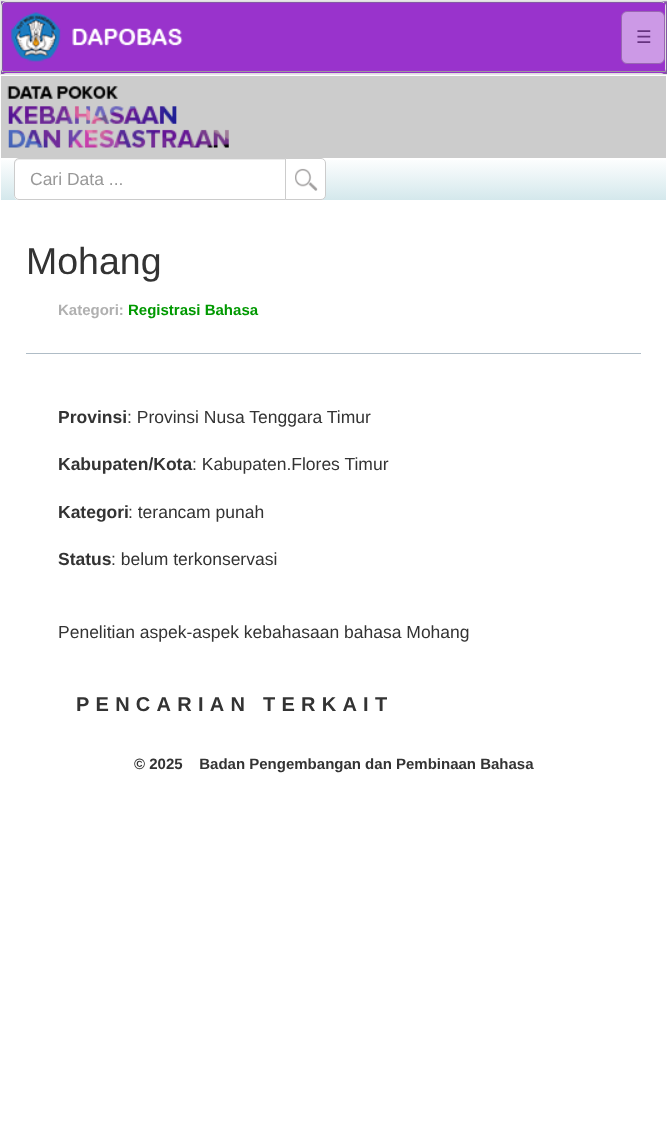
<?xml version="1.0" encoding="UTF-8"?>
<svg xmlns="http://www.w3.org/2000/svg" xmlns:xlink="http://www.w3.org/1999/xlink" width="667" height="1136">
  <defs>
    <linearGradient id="g1" gradientUnits="userSpaceOnUse" x1="170" y1="157" x2="170" y2="200"><stop offset="0" stop-color="#ffffff" /><stop offset="1" stop-color="#d4e8ec" /></linearGradient>
    <linearGradient id="g2" gradientUnits="userSpaceOnUse" x1="503" y1="157" x2="503" y2="200"><stop offset="0" stop-color="#ffffff" /><stop offset="1" stop-color="#d4e8ec" /></linearGradient>
  </defs>
  <rect width="100%" height="100%" fill="#ffffff" />
  <rect x="1" y="1" width="666" height="73" fill="#f8f8f8" />
  <image x="1" y="1" width="666" height="73" xlink:href="image1.png" />
  <rect x="0.5" y="0.5" width="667" height="74" fill="none" stroke="#e7e7e7" />
  <rect x="1.5" y="1.5" width="664" height="72" rx="4.5" fill="none" stroke="#dddddd" />
  <rect x="3" y="3" width="662" height="70" fill="#9933cc" />
  <image x="11" y="12" width="172" height="50" xlink:href="image2.png" />
  <rect x="3" y="71" width="663" height="1" fill="#999999" />
  <rect x="621.5" y="11.5" width="43" height="52" rx="5.5" fill="#cc99e6" stroke="#9966b3" />
  <rect x="1" y="76" width="665" height="82" fill="#cccccc" />
  <image x="7" y="86" width="222" height="62" xlink:href="image3.png" />
  <rect x="1" y="160" width="338" height="40" fill="url(#g1)" />
  <path d="M 19 158 h 267 v 42 h -267 c -3 0 -5 -2 -5 -5 v -32 c 0 -3 2 -5 5 -5 z" fill="#ffffff" />
  <path d="M 19 160 h 266 v -1 h -266 c -3 0 -4 2 -4 5 c 0 -2 2 -4 4 -4 z" fill="#ececec" />
  <path d="M 19 158.5 h 266.5 v 41 h -266.5 c -2.5 0 -4.5 -2 -4.5 -4.5 v -32 c 0 -2.5 2 -4.5 4.5 -4.5 z" fill="none" stroke="#cccccc" />
  <path d="M 285.5 158.5 h 35.5 c 2.5 0 4.5 2 4.5 4.5 v 32 c 0 2.5 -2 4.5 -4.5 4.5 h -35.5 z" fill="#ffffff" stroke="#cccccc" />
  <image x="295" y="168" width="23" height="23" xlink:href="image4.png" />
  <rect x="339" y="160" width="327" height="40" fill="url(#g2)" />
  <rect x="26" y="353" width="615" height="1" fill="#afbcc6" />
  <text x="636" y="43" style="font-family: DejaVu Sans; font-size: 17.5px; fill: #663380">☰</text>
  <text x="30" y="185" style="font-family: Liberation Sans; font-size: 17.5px; fill: #999999">Cari Data ...</text>
  <text x="26" y="274" style="font-family: Liberation Sans; font-size: 37.5px; fill: #333333">Mohang</text>
  <text x="58" y="315" style="font-family: Liberation Sans; font-size: 15px; font-weight: bold; fill: #b0b0b0">Kategori:</text>
  <text x="128" y="315" style="font-family: Liberation Sans; font-size: 15px; font-weight: bold; fill: #009900">Registrasi Bahasa</text>
  <text x="58" y="423" style="font-family: Liberation Sans; font-size: 17.5px; font-weight: bold; fill: #333333">Provinsi</text>
  <text x="127" y="423" style="font-family: Liberation Sans; font-size: 17.5px; fill: #333333">: Provinsi Nusa Tenggara Timur</text>
  <text x="58" y="470" style="font-family: Liberation Sans; font-size: 17.5px; font-weight: bold; fill: #333333">Kabupaten/Kota</text>
  <text x="192" y="470" style="font-family: Liberation Sans; font-size: 17.5px; fill: #333333">: Kabupaten.Flores Timur</text>
  <text x="58" y="518" style="font-family: Liberation Sans; font-size: 17.5px; font-weight: bold; fill: #333333">Kategori</text>
  <text x="128" y="518" style="font-family: Liberation Sans; font-size: 17.5px; fill: #333333">: terancam punah</text>
  <text x="58" y="565" style="font-family: Liberation Sans; font-size: 17.5px; font-weight: bold; fill: #333333">Status</text>
  <text x="111" y="565" style="font-family: Liberation Sans; font-size: 17.5px; fill: #333333">: belum terkonservasi</text>
  <text x="58" y="638" style="font-family: Liberation Sans; font-size: 17.5px; fill: #333333">Penelitian aspek-aspek kebahasaan bahasa Mohang</text>
  <text x="76" y="711" style="font-family: Liberation Sans; font-size: 20px; font-weight: bold; letter-spacing: 6.25px; fill: #333333">PENCARIAN TERKAIT</text>
  <text x="134" y="769" style="font-family: Liberation Sans; font-size: 15px; font-weight: bold; fill: #333333" xml:space="preserve">© 2025    Badan Pengembangan dan Pembinaan Bahasa</text>
</svg>
